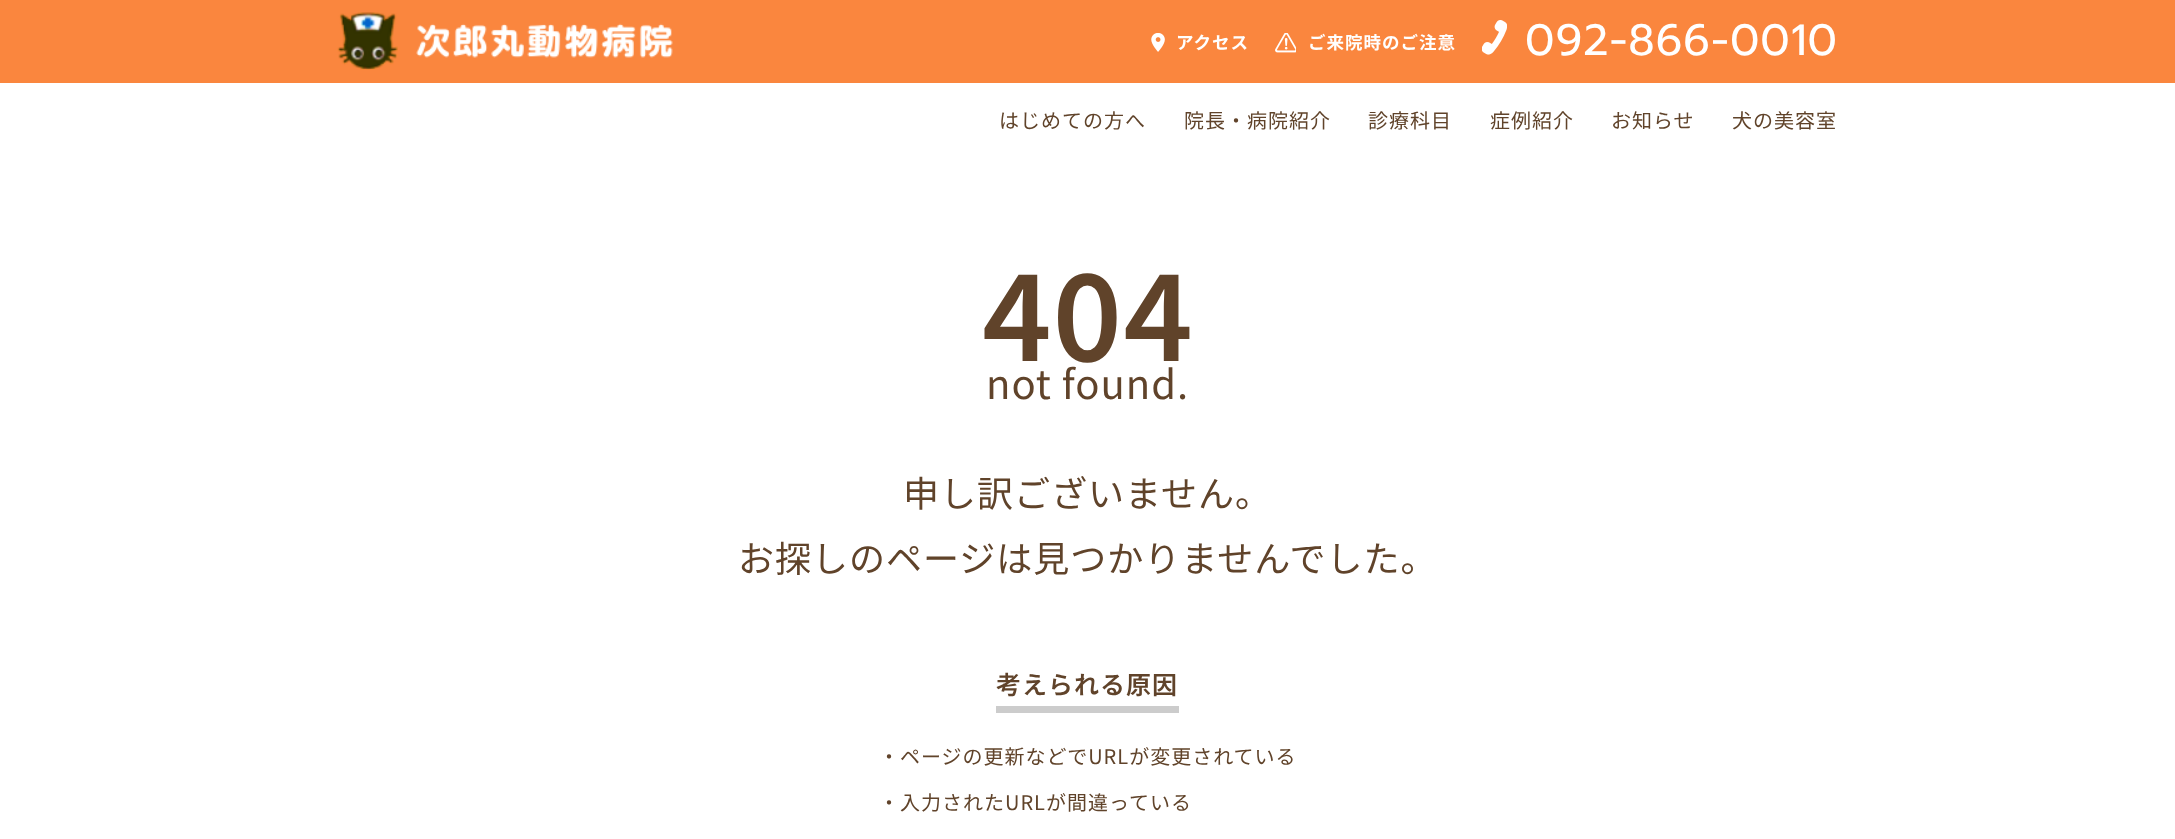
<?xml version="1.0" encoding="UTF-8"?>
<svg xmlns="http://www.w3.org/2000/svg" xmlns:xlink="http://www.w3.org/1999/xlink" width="2175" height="839">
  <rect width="100%" height="100%" fill="#ffffff" />
  <rect width="2175" height="83" fill="#fa863e" />
  <image x="337" y="12" width="336" height="58" xlink:href="image1.png" />
  <image x="1151" y="33" width="14" height="19" xlink:href="image2.png" />
  <image x="1275" y="33" width="21" height="20" xlink:href="image3.png" />
  <image x="1482" y="20" width="25" height="35" xlink:href="image4.png" />
  <rect x="996" y="706" width="183" height="7" fill="#cccccc" />
  <text x="1176" y="49" style="font-family: Noto Sans JP; font-size: 17.5px; font-weight: bold; letter-spacing: 1px; fill: #ffffff">アクセス</text>
  <text x="1308" y="49" style="font-family: Noto Sans JP; font-size: 17.5px; font-weight: bold; letter-spacing: 1px; fill: #ffffff">ご来院時のご注意</text>
  <text x="1525" y="55" style="font-family: Prompt; font-size: 43.75px; letter-spacing: 1px; fill: #ffffff">092-866-0010</text>
  <text x="999" y="128" style="font-family: Noto Sans JP; font-size: 20px; letter-spacing: 1px; fill: #60432a">はじめての方へ</text>
  <text x="1184" y="128" style="font-family: Noto Sans JP; font-size: 20px; letter-spacing: 1px; fill: #60432a">院長・病院紹介</text>
  <text x="1368" y="128" style="font-family: Noto Sans JP; font-size: 20px; letter-spacing: 1px; fill: #60432a">診療科目</text>
  <text x="1490" y="128" style="font-family: Noto Sans JP; font-size: 20px; letter-spacing: 1px; fill: #60432a">症例紹介</text>
  <text x="1611" y="128" style="font-family: Noto Sans JP; font-size: 20px; letter-spacing: 1px; fill: #60432a">お知らせ</text>
  <text x="1732" y="128" style="font-family: Noto Sans JP; font-size: 20px; letter-spacing: 1px; fill: #60432a">犬の美容室</text>
  <text x="982" y="361" style="font-family: Noto Sans JP; font-size: 120px; font-weight: 600; letter-spacing: 1px; fill: #60432a">404</text>
  <text x="986" y="399" style="font-family: Noto Sans JP; font-size: 40px; letter-spacing: 1px; fill: #60432a">not found.</text>
  <text x="903" y="507" style="font-family: Noto Sans JP; font-size: 36px; letter-spacing: 1px; fill: #60432a">申し訳ございません。</text>
  <text x="738" y="572" style="font-family: Noto Sans JP; font-size: 36px; letter-spacing: 1px; fill: #60432a">お探しのページは見つかりませんでした。</text>
  <text x="996" y="694" style="font-family: Noto Sans JP; font-size: 25px; font-weight: 600; letter-spacing: 1px; fill: #60432a">考えられる原因</text>
  <text x="879" y="764" style="font-family: Noto Sans JP; font-size: 20px; letter-spacing: 1px; fill: #60432a">・ページの更新などでURLが変更されている</text>
  <text x="879" y="810" style="font-family: Noto Sans JP; font-size: 20px; letter-spacing: 1px; fill: #60432a">・入力されたURLが間違っている</text>
</svg>
